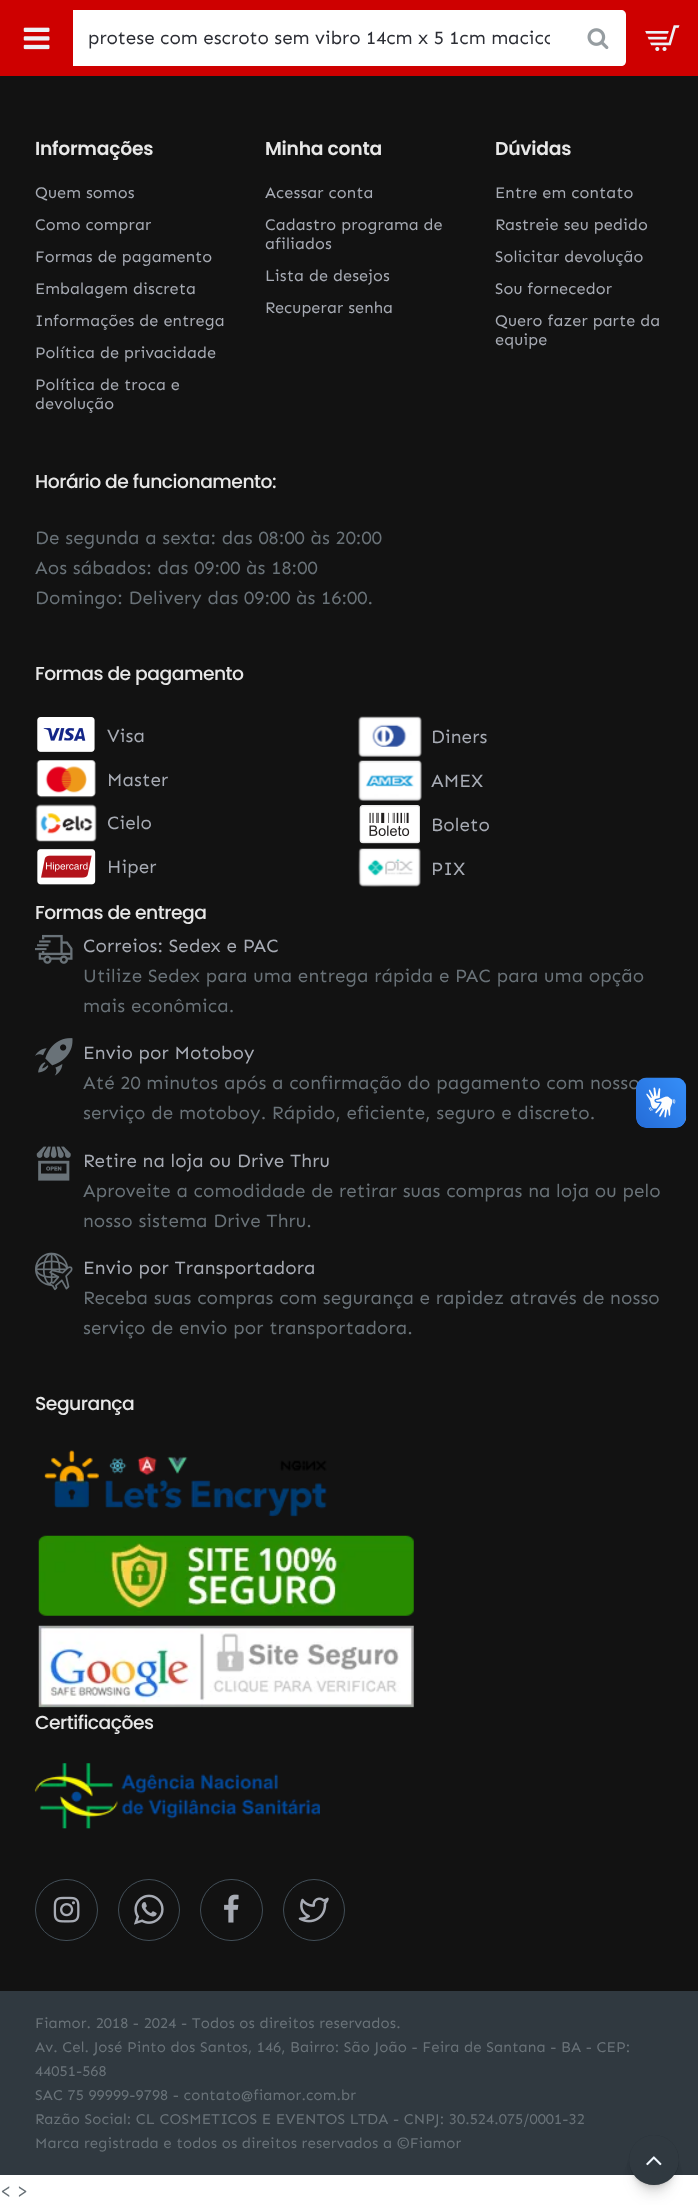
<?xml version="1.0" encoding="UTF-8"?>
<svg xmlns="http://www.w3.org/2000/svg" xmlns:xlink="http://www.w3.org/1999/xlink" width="698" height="2205">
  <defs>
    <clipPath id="clip1"><rect x="88" y="28" width="462" height="22" /></clipPath>
  </defs>
  <rect width="100%" height="100%" fill="#ffffff" />
  <rect width="698" height="76" fill="#ce0000" />
  <image x="23" y="27" width="27" height="23" xlink:href="image1.png" />
  <rect x="73" y="10" width="497" height="56" fill="#ffffff" />
  <path d="M 570 10 h 51 c 3 0 5 2 5 5 v 46 c 0 3 -2 5 -5 5 h -51 z" fill="#ffffff" />
  <image x="587" y="28" width="22" height="22" xlink:href="image2.png" />
  <image x="645" y="25" width="35" height="26" xlink:href="image3.png" />
  <rect y="76" width="698" height="1915" fill="#121212" />
  <image x="37" y="717" width="58" height="35" xlink:href="image4.png" />
  <image x="358" y="716" width="64" height="41" xlink:href="image5.png" />
  <image x="36" y="760" width="60" height="38" xlink:href="image6.png" />
  <image x="358" y="760" width="64" height="41" xlink:href="image7.png" />
  <image x="35" y="804" width="62" height="38" xlink:href="image8.png" />
  <image x="359" y="805" width="61" height="39" xlink:href="image9.png" />
  <image x="37" y="849" width="59" height="36" xlink:href="image10.png" />
  <image x="358" y="848" width="63" height="39" xlink:href="image11.png" />
  <image x="35" y="934" width="38" height="30" xlink:href="image12.png" />
  <image x="35" y="1038" width="38" height="38" xlink:href="image13.png" />
  <image x="36" y="1146" width="35" height="35" xlink:href="image14.png" />
  <image x="35" y="1252" width="38" height="39" xlink:href="image15.png" />
  <image x="44" y="1450" width="283" height="67" xlink:href="image16.png" />
  <image x="38" y="1535" width="376" height="173" xlink:href="image17.png" />
  <image x="34" y="1763" width="286" height="66" xlink:href="image18.png" />
  <rect x="35.5" y="1879.5" width="62" height="61" rx="30.5" fill="none" stroke="#424e57" />
  <image x="53" y="1896" width="27" height="27" xlink:href="image19.png" />
  <circle cx="149" cy="1910" r="30.5" fill="none" stroke="#424e57" />
  <image x="134" y="1894" width="30" height="31" xlink:href="image20.png" />
  <rect x="200.5" y="1879.5" width="62" height="61" rx="30.5" fill="none" stroke="#424e57" />
  <image x="224" y="1894" width="15" height="29" xlink:href="image21.png" />
  <circle cx="314" cy="1910" r="30.5" fill="none" stroke="#424e57" />
  <image x="298" y="1897" width="31" height="26" xlink:href="image22.png" />
  <rect y="1991" width="698" height="184" fill="#303940" />
  <rect x="633" y="2158" width="40" height="40" rx="20" fill="#000000" fill-opacity="0.04" filter="blur(7px)" />
  <rect x="633" y="2151" width="41" height="42" rx="20.5" fill="#000000" fill-opacity="0.06" filter="blur(5px)" />
  <rect x="633" y="2146" width="42" height="43" rx="21" fill="#000000" fill-opacity="0.07" filter="blur(3px)" />
  <rect x="631" y="2143" width="44" height="43" rx="21.5" fill="#000000" fill-opacity="0.08" filter="blur(2px)" />
  <rect x="631" y="2140" width="45" height="45" rx="22.5" fill="#000000" fill-opacity="0.1" filter="blur(1px)" />
  <rect x="630" y="2139" width="46" height="46" rx="23" fill="#000000" fill-opacity="0.11" filter="blur(0.5px)" />
  <rect x="630" y="2138" width="48" height="47" rx="23.5" fill="#000000" fill-opacity="0.12" filter="blur(0.5px)" />
  <rect x="630" y="2136" width="49" height="49" rx="24.5" fill="#000000" fill-opacity="0.14" filter="blur(0.5px)" />
  <rect x="629" y="2135" width="50" height="50" rx="25" fill="#000000" fill-opacity="0.15" filter="blur(0.5px)" />
  <circle cx="654" cy="2160" r="25" fill="#303940" />
  <image x="646" y="2156" width="16" height="10" xlink:href="image25.png" />
  <g clip-path="url(#clip1)">
    <text x="88" y="44" style="font-family: Sen; font-size: 18.75px; fill: #2c2e35">protese com escroto sem vibro 14cm x 5 1cm macico</text>
  </g>
  <text x="35" y="155" style="font-family: Poppins; font-size: 18.75px; font-weight: 600; letter-spacing: -0.25px; fill: #e7e7e7">Informações</text>
  <text x="35" y="198" style="font-family: Sen; font-size: 16.25px; letter-spacing: 0.12px; fill: #a7abb4">Quem somos</text>
  <text x="35" y="230" style="font-family: Sen; font-size: 16.25px; letter-spacing: 0.12px; fill: #a7abb4">Como comprar</text>
  <text x="35" y="262" style="font-family: Sen; font-size: 16.25px; letter-spacing: 0.12px; fill: #a7abb4">Formas de pagamento</text>
  <text x="35" y="294" style="font-family: Sen; font-size: 16.25px; letter-spacing: 0.12px; fill: #a7abb4">Embalagem discreta</text>
  <text x="35" y="326" style="font-family: Sen; font-size: 16.25px; letter-spacing: 0.12px; fill: #a7abb4">Informações de entrega</text>
  <text x="35" y="358" style="font-family: Sen; font-size: 16.25px; letter-spacing: 0.12px; fill: #a7abb4">Política de privacidade</text>
  <text x="35" y="390" style="font-family: Sen; font-size: 16.25px; letter-spacing: 0.12px; fill: #a7abb4">Política de troca e</text>
  <text x="35" y="409" style="font-family: Sen; font-size: 16.25px; letter-spacing: 0.12px; fill: #a7abb4">devolução</text>
  <text x="265" y="155" style="font-family: Poppins; font-size: 18.75px; font-weight: 600; letter-spacing: -0.25px; fill: #e7e7e7">Minha conta</text>
  <text x="265" y="198" style="font-family: Sen; font-size: 16.25px; letter-spacing: 0.12px; fill: #a7abb4">Acessar conta</text>
  <text x="265" y="230" style="font-family: Sen; font-size: 16.25px; letter-spacing: 0.12px; fill: #a7abb4">Cadastro programa de</text>
  <text x="265" y="249" style="font-family: Sen; font-size: 16.25px; letter-spacing: 0.12px; fill: #a7abb4">afiliados</text>
  <text x="265" y="281" style="font-family: Sen; font-size: 16.25px; letter-spacing: 0.12px; fill: #a7abb4">Lista de desejos</text>
  <text x="265" y="313" style="font-family: Sen; font-size: 16.25px; letter-spacing: 0.12px; fill: #a7abb4">Recuperar senha</text>
  <text x="495" y="155" style="font-family: Poppins; font-size: 18.75px; font-weight: 600; letter-spacing: -0.25px; fill: #e7e7e7">Dúvidas</text>
  <text x="495" y="198" style="font-family: Sen; font-size: 16.25px; letter-spacing: 0.12px; fill: #a7abb4">Entre em contato</text>
  <text x="495" y="230" style="font-family: Sen; font-size: 16.25px; letter-spacing: 0.12px; fill: #a7abb4">Rastreie seu pedido</text>
  <text x="495" y="262" style="font-family: Sen; font-size: 16.25px; letter-spacing: 0.12px; fill: #a7abb4">Solicitar devolução</text>
  <text x="495" y="294" style="font-family: Sen; font-size: 16.25px; letter-spacing: 0.12px; fill: #a7abb4">Sou fornecedor</text>
  <text x="495" y="326" style="font-family: Sen; font-size: 16.25px; letter-spacing: 0.12px; fill: #a7abb4">Quero fazer parte da</text>
  <text x="495" y="345" style="font-family: Sen; font-size: 16.25px; letter-spacing: 0.12px; fill: #a7abb4">equipe</text>
  <text x="35" y="488" style="font-family: Poppins; font-size: 18.75px; font-weight: 500; letter-spacing: -0.5px; fill: #e7e7e7">Horário de funcionamento:</text>
  <text x="35" y="544" style="font-family: Sen; font-size: 18.75px; letter-spacing: 0.12px; fill: #697278">De segunda a sexta: das 08:00 às 20:00</text>
  <text x="35" y="574" style="font-family: Sen; font-size: 18.75px; letter-spacing: 0.12px; fill: #697278">Aos sábados: das 09:00 às 18:00</text>
  <text x="35" y="604" style="font-family: Sen; font-size: 18.75px; letter-spacing: 0.12px; fill: #697278">Domingo: Delivery das 09:00 às 16:00.</text>
  <text x="35" y="680" style="font-family: Poppins; font-size: 18.75px; font-weight: 500; letter-spacing: -0.5px; fill: #e7e7e7">Formas de pagamento</text>
  <text x="107" y="742" style="font-family: Sen; font-size: 18.75px; letter-spacing: 0.12px; fill: #a7abb4">Visa</text>
  <text x="431" y="743" style="font-family: Sen; font-size: 18.75px; letter-spacing: 0.12px; fill: #a7abb4">Diners</text>
  <text x="107" y="786" style="font-family: Sen; font-size: 18.75px; letter-spacing: 0.12px; fill: #a7abb4">Master</text>
  <text x="431" y="787" style="font-family: Sen; font-size: 18.75px; letter-spacing: 0.12px; fill: #a7abb4">AMEX</text>
  <text x="107" y="829" style="font-family: Sen; font-size: 18.75px; letter-spacing: 0.12px; fill: #a7abb4">Cielo</text>
  <text x="431" y="831" style="font-family: Sen; font-size: 18.75px; letter-spacing: 0.12px; fill: #a7abb4">Boleto</text>
  <text x="107" y="873" style="font-family: Sen; font-size: 18.75px; letter-spacing: 0.12px; fill: #a7abb4">Hiper</text>
  <text x="431" y="875" style="font-family: Sen; font-size: 18.75px; letter-spacing: 0.12px; fill: #a7abb4">PIX</text>
  <text x="35" y="919" style="font-family: Poppins; font-size: 18.75px; font-weight: 500; letter-spacing: -0.5px; fill: #e7e7e7">Formas de entrega</text>
  <text x="83" y="952" style="font-family: Sen; font-size: 18.75px; letter-spacing: 0.12px; fill: #a7abb4">Correios: Sedex e PAC</text>
  <text x="83" y="982" style="font-family: Sen; font-size: 18.75px; letter-spacing: 0.12px; fill: #697278">Utilize Sedex para uma entrega rápida e PAC para uma opção</text>
  <text x="83" y="1012" style="font-family: Sen; font-size: 18.75px; letter-spacing: 0.12px; fill: #697278">mais econômica.</text>
  <text x="83" y="1059" style="font-family: Sen; font-size: 18.75px; letter-spacing: 0.12px; fill: #a7abb4">Envio por Motoboy</text>
  <text x="83" y="1089" style="font-family: Sen; font-size: 18.75px; letter-spacing: 0.12px; fill: #697278">Até 20 minutos após a confirmação do pagamento com nosso</text>
  <text x="83" y="1119" style="font-family: Sen; font-size: 18.75px; letter-spacing: 0.12px; fill: #697278">serviço de motoboy. Rápido, eficiente, seguro e discreto.</text>
  <text x="83" y="1167" style="font-family: Sen; font-size: 18.75px; letter-spacing: 0.12px; fill: #a7abb4">Retire na loja ou Drive Thru</text>
  <text x="83" y="1197" style="font-family: Sen; font-size: 18.75px; letter-spacing: 0.12px; fill: #697278">Aproveite a comodidade de retirar suas compras na loja ou pelo</text>
  <text x="83" y="1227" style="font-family: Sen; font-size: 18.75px; letter-spacing: 0.12px; fill: #697278">nosso sistema Drive Thru.</text>
  <text x="83" y="1274" style="font-family: Sen; font-size: 18.75px; letter-spacing: 0.12px; fill: #a7abb4">Envio por Transportadora</text>
  <text x="83" y="1304" style="font-family: Sen; font-size: 18.75px; letter-spacing: 0.12px; fill: #697278">Receba suas compras com segurança e rapidez através de nosso</text>
  <text x="83" y="1334" style="font-family: Sen; font-size: 18.75px; letter-spacing: 0.12px; fill: #697278">serviço de envio por transportadora.</text>
  <text x="35" y="1410" style="font-family: Poppins; font-size: 18.75px; font-weight: 500; letter-spacing: -0.5px; fill: #e7e7e7">Segurança</text>
  <text x="35" y="1729" style="font-family: Poppins; font-size: 18.75px; font-weight: 500; letter-spacing: -0.5px; fill: #e7e7e7">Certificações</text>
  <text x="35" y="2028" style="font-family: Sen; font-size: 15px; letter-spacing: 0.12px; fill: #697278">Fiamor. 2018 - 2024 - Todos os direitos reservados.</text>
  <text x="35" y="2052" style="font-family: Sen; font-size: 15px; letter-spacing: 0.12px; fill: #697278">Av. Cel. José Pinto dos Santos, 146, Bairro: São João - Feira de Santana - BA - CEP:</text>
  <text x="35" y="2076" style="font-family: Sen; font-size: 15px; letter-spacing: 0.12px; fill: #697278">44051-568</text>
  <text x="35" y="2100" style="font-family: Sen; font-size: 15px; letter-spacing: 0.12px; fill: #697278">SAC 75 99999-9798 - contato@fiamor.com.br</text>
  <text x="35" y="2124" style="font-family: Sen; font-size: 15px; letter-spacing: 0.12px; fill: #697278">Razão Social: CL COSMETICOS E EVENTOS LTDA - CNPJ: 30.524.075/0001-32</text>
  <text x="35" y="2148" style="font-family: Sen; font-size: 15px; letter-spacing: 0.12px; fill: #697278">Marca registrada e todos os direitos reservados a ©Fiamor</text>
  <image x="636" y="1077" width="51" height="51" xlink:href="image23.png" />
  <image x="636" y="1078" width="50" height="50" xlink:href="image24.png" />
  <text x="0" y="2197" style="font-family: Sen; font-size: 18.75px; letter-spacing: 0.12px; fill: #697278">&lt; &gt;</text>
</svg>
